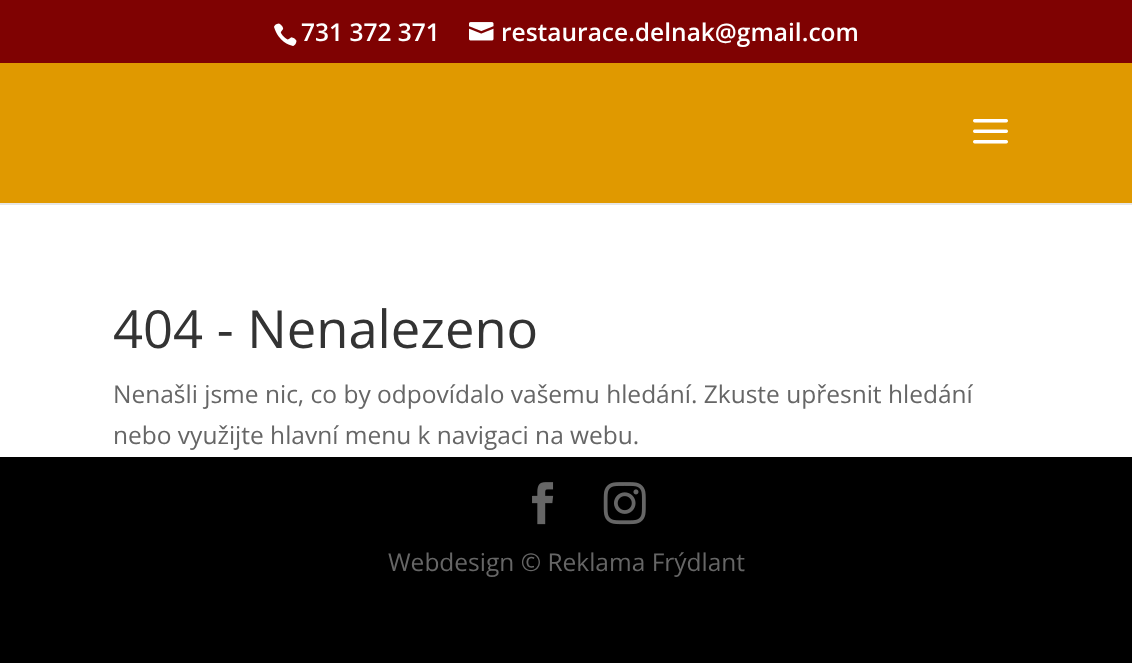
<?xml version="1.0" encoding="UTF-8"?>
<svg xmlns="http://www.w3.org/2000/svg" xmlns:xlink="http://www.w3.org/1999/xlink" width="1132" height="663">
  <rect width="100%" height="100%" fill="#000000" />
  <rect width="1132" height="63" fill="#7f0202" />
  <image x="274" y="23" width="23" height="23" xlink:href="image1.png" />
  <image x="469" y="22" width="25" height="19" xlink:href="image2.png" />
  <rect y="203" width="1132" height="2" fill="#e6e6e6" />
  <rect y="63" width="1132" height="140" fill="#e09900" />
  <image x="973" y="119" width="35" height="25" xlink:href="image3.png" />
  <rect y="205" width="1132" height="252" fill="#ffffff" />
  <image x="532" y="482" width="22" height="43" xlink:href="image4.png" />
  <image x="603" y="482" width="43" height="43" xlink:href="image5.png" />
  <text x="301" y="41" style="font-family: Open Sans; font-size: 24.5px; font-weight: 600; fill: #ffffff">731 372 371</text>
  <text x="501" y="41" style="font-family: Open Sans; font-size: 24.5px; font-weight: 600; fill: #ffffff">restaurace.delnak@gmail.com</text>
  <text x="113" y="348" style="font-family: Open Sans; font-size: 52.5px; fill: #333333">404 - Nenalezeno</text>
  <text x="113" y="403" style="font-family: Open Sans; font-size: 24.5px; fill: #666666">Nenašli jsme nic, co by odpovídalo vašemu hledání. Zkuste upřesnit hledání</text>
  <text x="113" y="444" style="font-family: Open Sans; font-size: 24.5px; fill: #666666">nebo využijte hlavní menu k navigaci na webu.</text>
  <text x="388" y="571" style="font-family: Open Sans; font-size: 24.5px; fill: #666666">Webdesign © Reklama Frýdlant</text>
</svg>
